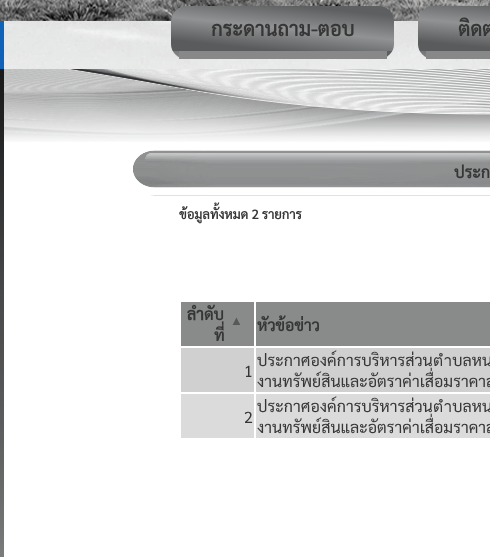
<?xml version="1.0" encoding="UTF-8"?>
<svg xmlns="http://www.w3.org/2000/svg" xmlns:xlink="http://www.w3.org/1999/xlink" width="490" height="557">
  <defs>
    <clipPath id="clip1"><rect x="171" y="6" width="223" height="53" rx="15" /></clipPath>
    <linearGradient id="g1" gradientUnits="userSpaceOnUse" x1="279" y1="62" x2="286" y2="-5.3"><stop offset="0.16" stop-color="#5a5b5c" /><stop offset="0.5" stop-color="#919293" /><stop offset="0.85" stop-color="#5e5f60" /></linearGradient>
    <linearGradient id="g2" gradientUnits="userSpaceOnUse" x1="279" y1="107" x2="286" y2="40"><stop offset="0.16" stop-color="#5a5b5c" /><stop offset="0.5" stop-color="#919293" /><stop offset="0.85" stop-color="#5e5f60" /></linearGradient>
    <clipPath id="clip2"><rect x="418" y="6" width="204" height="53" rx="15" /></clipPath>
    <linearGradient id="g3" gradientUnits="userSpaceOnUse" x1="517" y1="61" x2="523" y2="-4.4"><stop offset="0.16" stop-color="#5a5b5c" /><stop offset="0.5" stop-color="#919293" /><stop offset="0.85" stop-color="#5e5f60" /></linearGradient>
    <linearGradient id="g4" gradientUnits="userSpaceOnUse" x1="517" y1="106" x2="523" y2="41"><stop offset="0.16" stop-color="#5a5b5c" /><stop offset="0.5" stop-color="#919293" /><stop offset="0.85" stop-color="#5e5f60" /></linearGradient>
  </defs>
  <rect width="100%" height="100%" fill="#1062b8" />
  <image x="0" y="0" width="4" height="21" xlink:href="image1.png" />
  <image x="4" y="0" width="486" height="69" xlink:href="image2.png" />
  <g clip-path="url(#clip1)">
    <path d="M 186 6 h 193 c 8.5 0 15 6.5 15 15 v 30 h -223 v -30 c 0 -8.5 6.5 -15 15 -15 z" fill="url(#g1)" />
    <rect x="171" y="51" width="223" height="7" fill="url(#g2)" />
  </g>
  <rect x="179" y="51" width="208" height="8" fill="#888888" />
  <g clip-path="url(#clip2)">
    <path d="M 433 6 h 57 c 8.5 0 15 6.5 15 15 v 30 h -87 v -30 c 0 -8.5 6.5 -15 15 -15 z" fill="url(#g3)" />
    <rect x="418" y="51" width="8" height="7" fill="url(#g4)" />
  </g>
  <rect x="426" y="51" width="64" height="8" fill="#888888" />
  <image x="0" y="69" width="4" height="488" xlink:href="image3.png" />
  <rect x="4" y="142" width="486" height="415" fill="#ffffff" />
  <image x="4" y="69" width="486" height="73" xlink:href="image4.png" />
  <image x="133" y="150" width="357" height="46" xlink:href="image5.png" />
  <rect x="181" y="302" width="73" height="44" fill="#898a8a" />
  <rect x="256" y="302" width="234" height="44" fill="#898a8a" />
  <rect x="181" y="348" width="73" height="44" fill="#d0d0d1" />
  <rect x="256" y="348" width="234" height="44" fill="#d0d0d1" />
  <rect x="181" y="394" width="73" height="44" fill="#dbdbdc" />
  <rect x="256" y="394" width="234" height="44" fill="#dbdbdc" />
  <text x="211" y="36" style="font-family: Sarabun; font-size: 20px; font-weight: bold; fill: #363636">กระดานถาม-ตอบ</text>
  <text x="458" y="36" style="font-family: Sarabun; font-size: 20px; font-weight: bold; fill: #363636">ติดต่</text>
  <text x="454" y="178" style="font-family: Sarabun; font-size: 16px; font-weight: bold; fill: #363636">ประก</text>
  <text x="179" y="219" style="font-family: Sarabun; font-size: 13px; font-weight: bold; fill: #363636">ข้อมูลทั้งหมด 2 รายการ</text>
  <text x="187" y="320" style="font-family: Sarabun; font-size: 16px; font-weight: bold; fill: #363636">ลำดับ</text>
  <text x="230" y="325" style="font-family: Liberation Sans; font-size: 13px; fill: #575858">▲</text>
  <text x="214" y="341" style="font-family: Sarabun; font-size: 16px; font-weight: bold; fill: #363636">ที่</text>
  <text x="257" y="331" style="font-family: Sarabun; font-size: 16px; font-weight: bold; fill: #363636">หัวข้อข่าว</text>
  <text x="244" y="377" style="font-family: Sarabun; font-size: 16px; fill: #363636">1</text>
  <text x="257" y="366" style="font-family: Sarabun; font-size: 16px; fill: #363636">ประกาศองค์การบริหารส่วนตำบลหน</text>
  <text x="257" y="387" style="font-family: Sarabun; font-size: 16px; fill: #363636">งานทรัพย์สินและอัตราค่าเสื่อมราคาส</text>
  <text x="244" y="423" style="font-family: Sarabun; font-size: 16px; fill: #363636">2</text>
  <text x="257" y="412" style="font-family: Sarabun; font-size: 16px; fill: #363636">ประกาศองค์การบริหารส่วนตำบลหน</text>
  <text x="257" y="433" style="font-family: Sarabun; font-size: 16px; fill: #363636">งานทรัพย์สินและอัตราค่าเสื่อมราคาส</text>
</svg>
